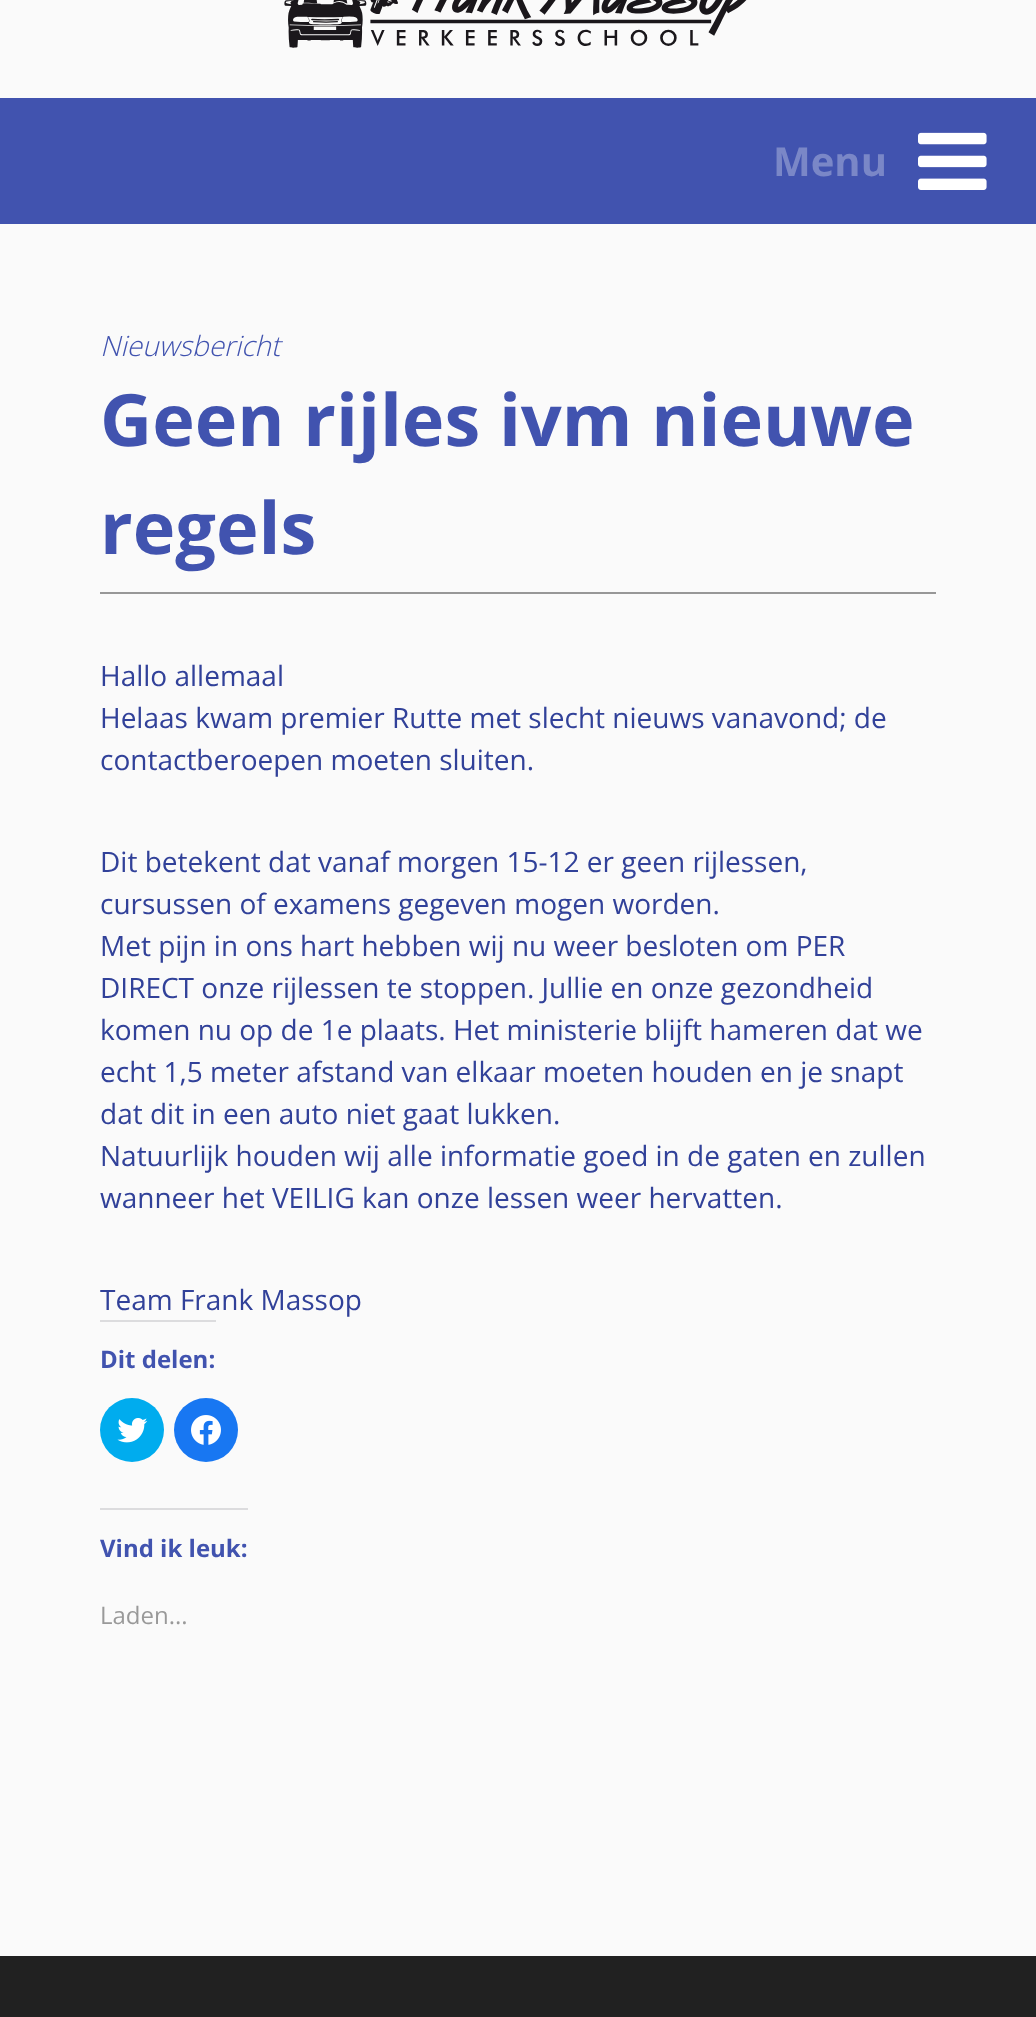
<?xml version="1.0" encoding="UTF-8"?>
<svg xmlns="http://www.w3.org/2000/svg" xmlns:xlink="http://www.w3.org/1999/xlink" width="1036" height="2017">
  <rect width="100%" height="100%" fill="#fafafa" />
  <image x="284" y="0" width="463" height="48" xlink:href="image1.png" />
  <rect y="98" width="1036" height="126" fill="#4153af" />
  <image x="918" y="132" width="69" height="58" xlink:href="image2.png" />
  <rect x="100" y="592" width="836" height="2" fill="#979797" />
  <rect x="100" y="1320" width="116" height="2" fill="#dcdcde" />
  <circle cx="132" cy="1430" r="32" fill="#00acee" />
  <image x="117" y="1418" width="31" height="25" xlink:href="image3.png" />
  <circle cx="206" cy="1430" r="32" fill="#1877f2" />
  <image x="191" y="1415" width="30" height="30" xlink:href="image4.png" />
  <rect x="100" y="1508" width="148" height="2" fill="#dcdcde" />
  <rect y="1956" width="1036" height="61" fill="#212121" />
  <text x="773" y="176" style="font-family: Open Sans; font-size: 40px; font-weight: bold; fill: #7a87c7">Menu</text>
  <text x="100" y="356" style="font-family: Open Sans; font-size: 28px; font-weight: 300; font-style: italic; fill: #4153af">Nieuwsbericht</text>
  <text x="100" y="446" style="font-family: Open Sans; font-size: 72px; font-weight: bold; fill: #4153af">Geen rijles ivm nieuwe</text>
  <text x="100" y="554" style="font-family: Open Sans; font-size: 72px; font-weight: bold; fill: #4153af">regels</text>
  <text x="100" y="686" style="font-family: Open Sans; font-size: 28px; fill: #314199">Hallo allemaal</text>
  <text x="100" y="728" style="font-family: Open Sans; font-size: 28px; fill: #314199">Helaas kwam premier Rutte met slecht nieuws vanavond; de</text>
  <text x="100" y="770" style="font-family: Open Sans; font-size: 28px; fill: #314199">contactberoepen moeten sluiten.</text>
  <text x="100" y="872" style="font-family: Open Sans; font-size: 28px; fill: #314199">Dit betekent dat vanaf morgen 15-12 er geen rijlessen,</text>
  <text x="100" y="914" style="font-family: Open Sans; font-size: 28px; fill: #314199">cursussen of examens gegeven mogen worden.</text>
  <text x="100" y="956" style="font-family: Open Sans; font-size: 28px; fill: #314199">Met pijn in ons hart hebben wij nu weer besloten om PER</text>
  <text x="100" y="998" style="font-family: Open Sans; font-size: 28px; fill: #314199">DIRECT onze rijlessen te stoppen. Jullie en onze gezondheid</text>
  <text x="100" y="1040" style="font-family: Open Sans; font-size: 28px; fill: #314199">komen nu op de 1e plaats. Het ministerie blijft hameren dat we</text>
  <text x="100" y="1082" style="font-family: Open Sans; font-size: 28px; fill: #314199">echt 1,5 meter afstand van elkaar moeten houden en je snapt</text>
  <text x="100" y="1124" style="font-family: Open Sans; font-size: 28px; fill: #314199">dat dit in een auto niet gaat lukken.</text>
  <text x="100" y="1166" style="font-family: Open Sans; font-size: 28px; fill: #314199">Natuurlijk houden wij alle informatie goed in de gaten en zullen</text>
  <text x="100" y="1208" style="font-family: Open Sans; font-size: 28px; fill: #314199">wanneer het VEILIG kan onze lessen weer hervatten.</text>
  <text x="100" y="1310" style="font-family: Open Sans; font-size: 28px; fill: #314199">Team Frank Massop</text>
  <text x="100" y="1368" style="font-family: Open Sans; font-size: 24px; font-weight: bold; fill: #4153af">Dit delen:</text>
  <text x="100" y="1557" style="font-family: Open Sans; font-size: 24px; font-weight: bold; fill: #4153af">Vind ik leuk:</text>
  <text x="100" y="1624" style="font-family: Open Sans; font-size: 24px; fill: #999999">Laden...</text>
</svg>
